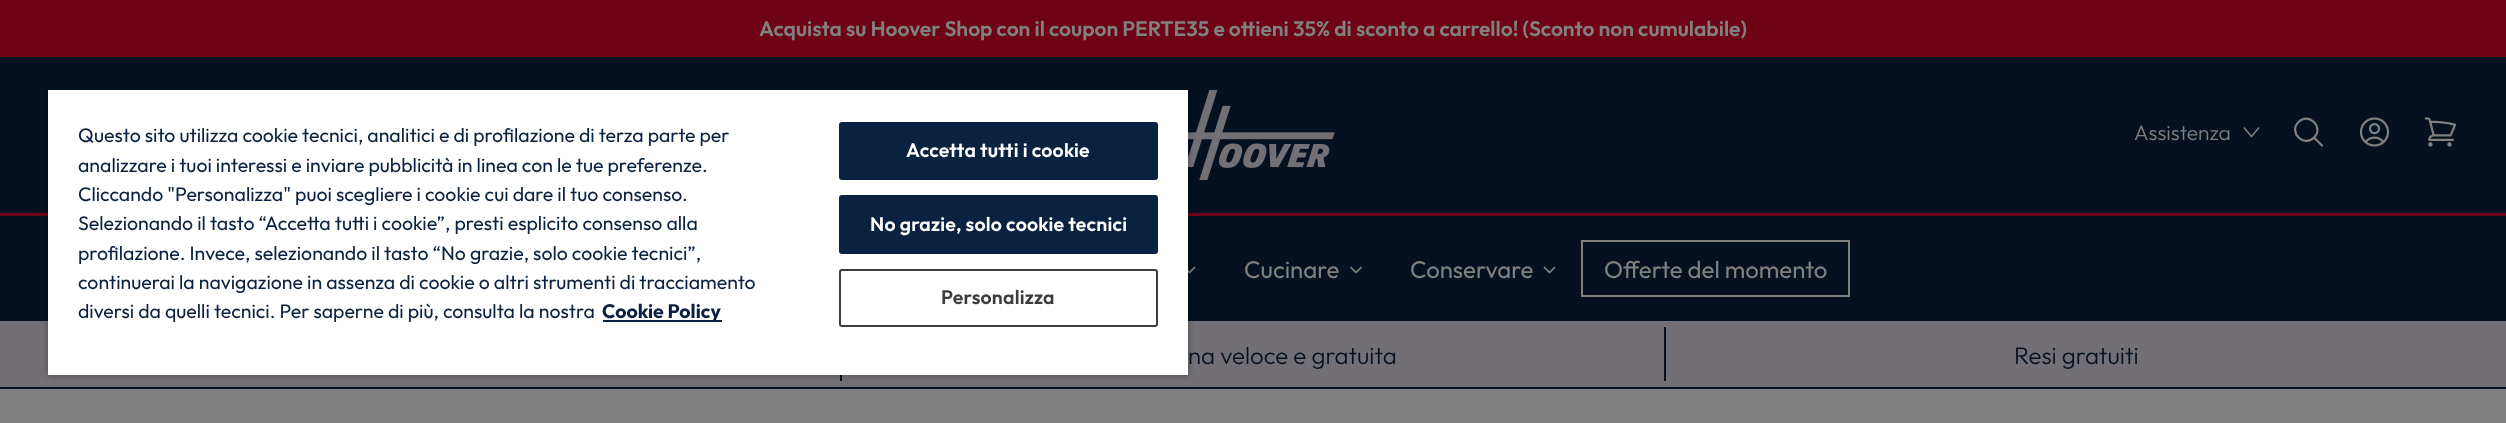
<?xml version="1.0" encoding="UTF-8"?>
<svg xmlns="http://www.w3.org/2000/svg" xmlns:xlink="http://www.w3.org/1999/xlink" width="2506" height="423">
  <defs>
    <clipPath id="clip1"><path d="M 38 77 h 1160 v 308 h -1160 z m 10 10 h 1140 v 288 h -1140 z" clip-rule="evenodd" /></clipPath>
    <clipPath id="clip2"><rect x="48" y="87" width="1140" height="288" /></clipPath>
  </defs>
  <rect width="100%" height="100%" fill="#808080" />
  <rect y="57" width="2506" height="264" fill="#051120" />
  <rect y="213" width="2506" height="3" fill="#6f0316" />
  <image x="1188" y="90" width="147" height="90" xlink:href="image1.png" />
  <image x="1188" y="266" width="8" height="8" xlink:href="image4.png" />
  <rect y="321" width="2506" height="66" fill="#727074" />
  <rect x="840" y="375" width="2" height="6" fill="#051120" />
  <g clip-path="url(#clip1)">
    <rect x="48" y="87" width="1140" height="288" fill="#000000" fill-opacity="0.35" filter="blur(3px)" />
  </g>
  <g clip-path="url(#clip2)">
    <rect x="48" y="90" width="1140" height="285" fill="#000000" fill-opacity="0.2" filter="blur(3px)" />
  </g>
  <rect x="48" y="90" width="1140" height="285" fill="#ffffff" />
  <rect x="603" y="320" width="119" height="2" fill="#0a2240" />
  <rect x="840" y="123" width="317" height="56" rx="2" fill="#0a2240" stroke="#0a2240" stroke-width="2" />
  <rect x="840" y="196" width="317" height="57" rx="2" fill="#0a2240" stroke="#0a2240" stroke-width="2" />
  <rect x="840" y="270" width="317" height="56" rx="2" fill="none" stroke="#3c3c3e" stroke-width="2" />
  <rect width="2506" height="57" fill="#6f0316" />
  <path d="M 2244 127.5 l 7.5 9 l 7.5 -9" fill="none" stroke="#808080" stroke-width="1.5" />
  <path d="M 2322 145.5 l -8 -8 m 0 0 c 10.5 -10 -5.5 -26 -15.5 -15.5 c -10.5 10 5.5 26 15.5 15.5 z" fill="none" stroke="#808080" stroke-width="2.2" stroke-linecap="round" stroke-linejoin="round" />
  <image x="2359" y="117" width="31" height="30" xlink:href="image2.png" />
  <image x="2424" y="117" width="32" height="30" xlink:href="image3.png" />
  <image x="1350" y="266" width="12" height="8" xlink:href="image5.png" />
  <image x="1543" y="266" width="13" height="8" xlink:href="image6.png" />
  <rect x="1582" y="241" width="267" height="55" fill="none" stroke="#808080" stroke-width="2" />
  <rect y="387" width="2506" height="2" fill="#051120" />
  <rect x="1664" y="327" width="2" height="54" fill="#051120" />
  <text x="78" y="142" style="font-family: Outfit; font-size: 19.5px; fill: #0a2240">Questo sito utilizza cookie tecnici, analitici e di profilazione di terza parte per</text>
  <text x="78" y="172" style="font-family: Outfit; font-size: 19.5px; fill: #0a2240">analizzare i tuoi interessi e inviare pubblicità in linea con le tue preferenze.</text>
  <text x="78" y="201" style="font-family: Outfit; font-size: 19.5px; fill: #0a2240">Cliccando "Personalizza" puoi scegliere i cookie cui dare il tuo consenso.</text>
  <text x="78" y="230" style="font-family: Outfit; font-size: 19.5px; fill: #0a2240">Selezionando il tasto “Accetta tutti i cookie”, presti esplicito consenso alla</text>
  <text x="78" y="260" style="font-family: Outfit; font-size: 19.5px; fill: #0a2240">profilazione. Invece, selezionando il tasto “No grazie, solo cookie tecnici”,</text>
  <text x="78" y="289" style="font-family: Outfit; font-size: 19.5px; fill: #0a2240">continuerai la navigazione in assenza di cookie o altri strumenti di tracciamento</text>
  <text x="78" y="318" style="font-family: Outfit; font-size: 19.5px; fill: #0a2240">diversi da quelli tecnici. Per saperne di più, consulta la nostra</text>
  <text x="602" y="318" style="font-family: Outfit; font-size: 19.5px; font-weight: bold; fill: #0a2240">Cookie Policy</text>
  <text x="906" y="157" style="font-family: Outfit; font-size: 19.5px; font-weight: 600; letter-spacing: 0.2px; fill: #ffffff">Accetta tutti i cookie</text>
  <text x="870" y="231" style="font-family: Outfit; font-size: 19.5px; font-weight: 600; letter-spacing: 0.2px; fill: #ffffff">No grazie, solo cookie tecnici</text>
  <text x="941" y="304" style="font-family: Outfit; font-size: 19.5px; font-weight: 600; letter-spacing: 0.2px; fill: #3c3c3e">Personalizza</text>
  <text x="759" y="36" style="font-family: Outfit; font-size: 21px; font-weight: 600; fill: #808080">Acquista su Hoover Shop con il coupon PERTE35 e ottieni 35% di sconto a carrello! (Sconto non cumulabile)</text>
  <text x="2134" y="140" style="font-family: Outfit; font-size: 21px; font-weight: 300; fill: #808080">Assistenza</text>
  <text x="1244" y="278" style="font-family: Outfit; font-size: 24px; fill: #808080">Cucinare</text>
  <text x="1410" y="278" style="font-family: Outfit; font-size: 24px; fill: #808080">Conservare</text>
  <text x="1604" y="278" style="font-family: Outfit; font-size: 24px; fill: #808080">Offerte del momento</text>
  <text x="1188" y="364" style="font-family: Outfit; font-size: 24px; font-weight: 300; fill: #051120">na veloce e gratuita</text>
  <text x="2014" y="364" style="font-family: Outfit; font-size: 24px; font-weight: 300; fill: #051120">Resi gratuiti</text>
</svg>
